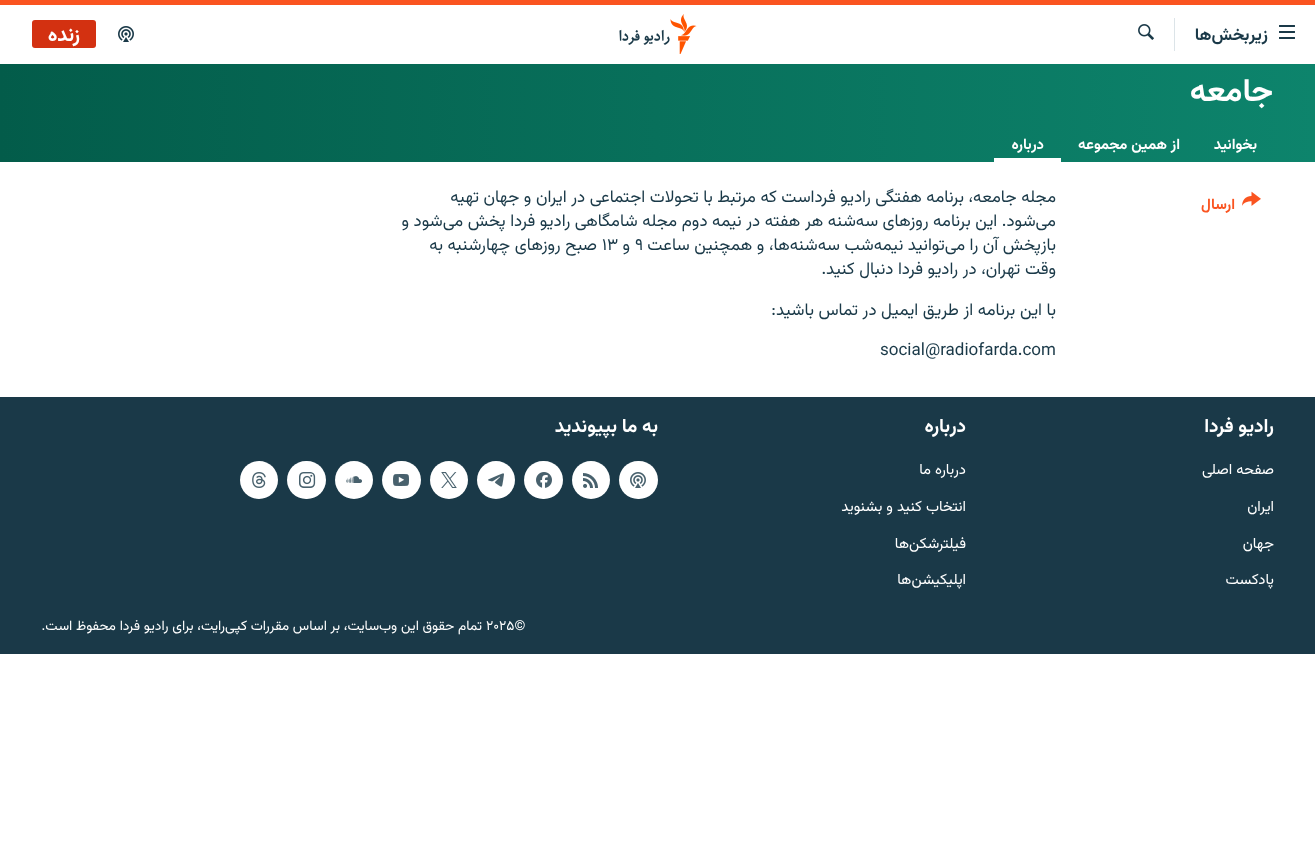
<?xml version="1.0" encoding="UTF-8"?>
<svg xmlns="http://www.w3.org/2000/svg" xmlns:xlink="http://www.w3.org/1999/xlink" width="1315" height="848">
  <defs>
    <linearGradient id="g1" gradientUnits="userSpaceOnUse" x1="0" y1="113" x2="1315" y2="113"><stop offset="0" stop-color="#035c4a" /><stop offset="1" stop-color="#0d846c" /></linearGradient>
  </defs>
  <rect width="100%" height="100%" fill="#ffffff" />
  <rect width="1315" height="5" fill="#fa5420" />
  <image x="1279" y="25" width="16" height="14" xlink:href="image1.png" />
  <rect x="1174" y="18" width="1" height="33" fill="#dce4e8" />
  <image x="1138" y="24" width="16" height="16" xlink:href="image2.png" />
  <image x="619" y="14" width="78" height="40" xlink:href="image3.png" />
  <image x="118" y="26" width="16" height="16" xlink:href="image4.png" />
  <rect x="32" y="20" width="64" height="28" rx="3" fill="#d33111" />
  <rect y="64" width="1315" height="98" fill="url(#g1)" />
  <rect x="994" y="158" width="67" height="4" fill="#ffffff" />
  <image x="1242" y="191" width="19" height="15" xlink:href="image5.png" />
  <rect y="397" width="1315" height="257" fill="#1a3948" />
  <rect x="619" y="461" width="39" height="38" rx="19" fill="#ffffff" />
  <image x="630" y="472" width="16" height="16" xlink:href="image6.png" />
  <circle cx="591" cy="480" r="19" fill="#ffffff" />
  <image x="583" y="473" width="15" height="15" xlink:href="image7.png" />
  <rect x="524" y="461" width="39" height="38" rx="19" fill="#ffffff" />
  <image x="536" y="472" width="16" height="16" xlink:href="image8.png" />
  <circle cx="496" cy="480" r="19" fill="#ffffff" />
  <image x="488" y="473" width="16" height="14" xlink:href="image9.png" />
  <circle cx="449" cy="480" r="19" fill="#ffffff" />
  <image x="441" y="472" width="16" height="16" xlink:href="image10.png" />
  <rect x="382" y="461" width="39" height="38" rx="19" fill="#ffffff" />
  <image x="393" y="474" width="16" height="12" xlink:href="image11.png" />
  <circle cx="354" cy="480" r="19" fill="#ffffff" />
  <image x="346" y="476" width="16" height="7" xlink:href="image12.png" />
  <rect x="287" y="461" width="39" height="38" rx="19" fill="#ffffff" />
  <image x="299" y="472" width="17" height="16" xlink:href="image13.png" />
  <circle cx="259" cy="480" r="19" fill="#ffffff" />
  <image x="252" y="472" width="14" height="16" xlink:href="image14.png" />
  <text x="1268" y="40" style="font-family: Vazirmatn; font-size: 17px; font-weight: bold; direction: rtl; fill: #1a3948">زیربخش‌ها</text>
  <text x="80" y="41" style="font-family: Vazirmatn; font-size: 20px; font-weight: bold; direction: rtl; fill: #ffffff">زنده</text>
  <text x="1273" y="101" style="font-family: Vazirmatn; font-size: 32px; font-weight: bold; direction: rtl; fill: #ffffff">جامعه</text>
  <text x="1257" y="149" style="font-family: Vazirmatn; font-size: 14.9px; font-weight: bold; direction: rtl; fill: #ffffff">بخوانید</text>
  <text x="1180" y="149" style="font-family: Vazirmatn; font-size: 14.9px; font-weight: bold; direction: rtl; fill: #ffffff">از همین مجموعه</text>
  <text x="1044" y="149" style="font-family: Vazirmatn; font-size: 14.9px; font-weight: bold; direction: rtl; fill: #ffffff">درباره</text>
  <text x="1235" y="209" style="font-family: Vazirmatn; font-size: 14.9px; font-weight: bold; direction: rtl; fill: #fa5420">ارسال</text>
  <text x="1056" y="202" style="font-family: Vazirmatn; font-size: 17px; direction: rtl; fill: #1a3948">مجله جامعه، برنامه هفتگی رادیو فرداست که مرتبط با تحولات اجتماعی در ایران و جهان تهیه</text>
  <text x="1056" y="226" style="font-family: Vazirmatn; font-size: 17px; direction: rtl; fill: #1a3948">می‌شود. این برنامه روزهای سه‌شنه هر هفته در نیمه دوم مجله شامگاهی رادیو فردا پخش می‌شود و</text>
  <text x="1056" y="250" style="font-family: Vazirmatn; font-size: 17px; direction: rtl; fill: #1a3948">بازپخش آن را می‌توانید نیمه‌شب سه‌شنه‌ها، و همچنین ساعت</text>
  <text x="635" y="250" style="font-family: Vazirmatn; font-size: 17px; fill: #1a3948">۹</text>
  <text x="630" y="250" style="font-family: Vazirmatn; font-size: 17px; direction: rtl; fill: #1a3948">و</text>
  <text x="602" y="250" style="font-family: Vazirmatn; font-size: 17px; fill: #1a3948">۱۳</text>
  <text x="597" y="250" style="font-family: Vazirmatn; font-size: 17px; direction: rtl; fill: #1a3948">صبح روزهای چهارشنبه به</text>
  <text x="1056" y="274" style="font-family: Vazirmatn; font-size: 17px; direction: rtl; fill: #1a3948">وقت تهران، در رادیو فردا دنبال کنید.</text>
  <text x="1056" y="315" style="font-family: Vazirmatn; font-size: 17px; direction: rtl; fill: #1a3948">با این برنامه از طریق ایمیل در تماس باشید:</text>
  <text x="880" y="355" style="font-family: Vazirmatn; font-size: 17px; fill: #1a3948">social@radiofarda.com</text>
  <text x="1274" y="432" style="font-family: Vazirmatn; font-size: 19px; font-weight: bold; direction: rtl; fill: #ffffff">رادیو فردا</text>
  <text x="1274" y="474" style="font-family: Vazirmatn; font-size: 14.9px; direction: rtl; fill: #ffffff">صفحه اصلی</text>
  <text x="1274" y="511" style="font-family: Vazirmatn; font-size: 14.9px; direction: rtl; fill: #ffffff">ایران</text>
  <text x="1274" y="548" style="font-family: Vazirmatn; font-size: 14.9px; direction: rtl; fill: #ffffff">جهان</text>
  <text x="1274" y="584" style="font-family: Vazirmatn; font-size: 14.9px; direction: rtl; fill: #ffffff">پادکست</text>
  <text x="966" y="432" style="font-family: Vazirmatn; font-size: 19px; font-weight: bold; direction: rtl; fill: #ffffff">درباره</text>
  <text x="966" y="474" style="font-family: Vazirmatn; font-size: 14.9px; direction: rtl; fill: #ffffff">درباره ما</text>
  <text x="966" y="511" style="font-family: Vazirmatn; font-size: 14.9px; direction: rtl; fill: #ffffff">انتخاب کنید و بشنوید</text>
  <text x="966" y="548" style="font-family: Vazirmatn; font-size: 14.9px; direction: rtl; fill: #ffffff">فیلترشکن‌ها</text>
  <text x="966" y="584" style="font-family: Vazirmatn; font-size: 14.9px; direction: rtl; fill: #ffffff">اپلیکیشن‌ها</text>
  <text x="658" y="432" style="font-family: Vazirmatn; font-size: 19px; font-weight: bold; direction: rtl; fill: #ffffff">به ما بپیوندید</text>
  <text x="486" y="630" style="font-family: Vazirmatn; font-size: 13.8px; fill: #ffffff">۲۰۲۵©</text>
  <text x="482" y="630" style="font-family: Vazirmatn; font-size: 13.8px; direction: rtl; fill: #ffffff">تمام حقوق این وب‌سایت، بر اساس مقررات کپی‌رایت، برای رادیو فردا محفوظ است.</text>
</svg>
